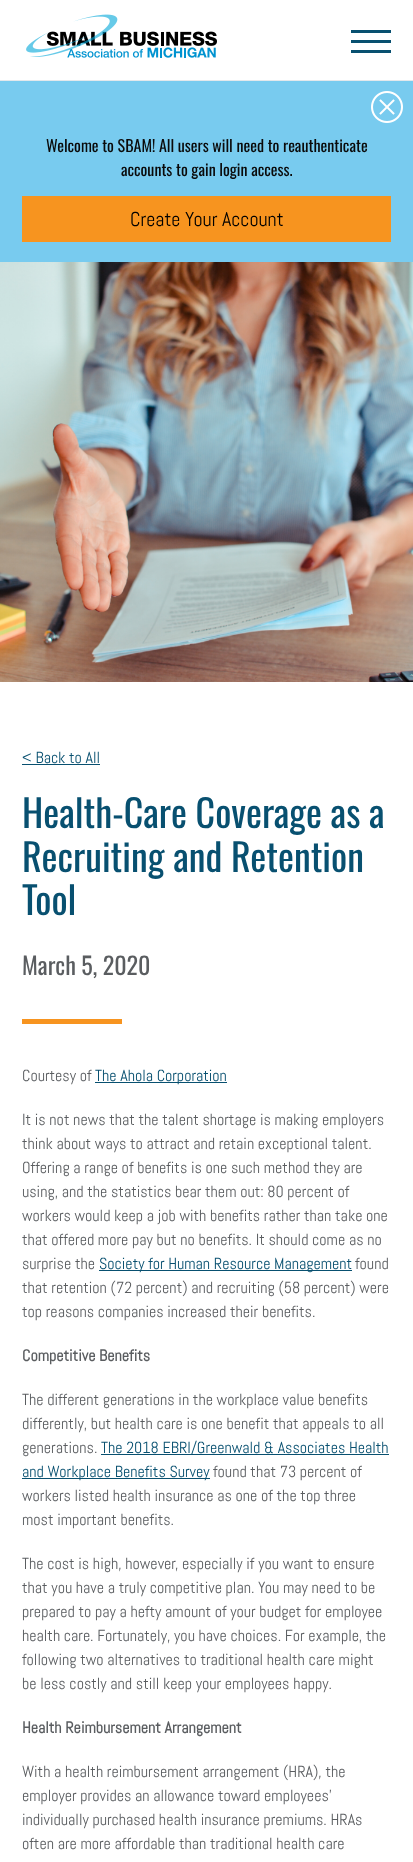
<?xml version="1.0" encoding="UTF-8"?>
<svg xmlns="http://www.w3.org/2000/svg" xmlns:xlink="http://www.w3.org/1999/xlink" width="413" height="1862">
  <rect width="100%" height="100%" fill="#ffffff" />
  <image x="26" y="14" width="191" height="44" xlink:href="image1.png" />
  <rect x="351" y="30" width="40" height="3" fill="#085070" />
  <rect x="351" y="40" width="40" height="3" fill="#085070" />
  <rect x="351" y="50" width="40" height="3" fill="#085070" />
  <rect y="80" width="413" height="1" fill="#e3e8ec" />
  <rect y="81" width="413" height="181" fill="#78cbef" />
  <image x="371" y="91" width="32" height="32" xlink:href="image2.png" />
  <rect x="22" y="196" width="369" height="46" fill="#f7941f" />
  <image x="0" y="262" width="413" height="420" xlink:href="image3.png" />
  <rect x="22" y="764" width="78" height="1" fill="#085070" />
  <rect x="22" y="1019" width="100" height="5" fill="#f7941f" />
  <rect x="95" y="1082" width="132" height="1" fill="#085070" />
  <rect x="99" y="1270" width="253" height="1" fill="#085070" />
  <rect x="101" y="1454" width="288" height="1" fill="#085070" />
  <rect x="22" y="1478" width="188" height="1" fill="#085070" />
  <text x="46" y="152" style="font-family: Oswald; font-size: 16px; fill: #0a0a0a">Welcome to SBAM! All users will need to reauthenticate</text>
  <text x="121" y="176" style="font-family: Oswald; font-size: 16px; fill: #0a0a0a">accounts to gain login access.</text>
  <text x="130" y="226" style="font-family: Abel; font-size: 20px; fill: #000000">Create Your Account</text>
  <text x="22" y="763" style="font-family: Abel; font-size: 16px; fill: #085070">&lt; Back to All</text>
  <text x="22" y="828" style="font-family: Oswald; font-size: 38px; fill: #085070">Health-Care Coverage as a</text>
  <text x="22" y="872" style="font-family: Oswald; font-size: 38px; fill: #085070">Recruiting and Retention</text>
  <text x="22" y="915" style="font-family: Oswald; font-size: 38px; fill: #085070">Tool</text>
  <text x="22" y="975" style="font-family: Oswald; font-size: 24px; fill: #5a5d60">March 5, 2020</text>
  <text x="22" y="1081" style="font-family: Abel; font-size: 16px; fill: #5a5d60">Courtesy of</text>
  <text x="95" y="1081" style="font-family: Abel; font-size: 16px; fill: #085070">The Ahola Corporation</text>
  <text x="22" y="1125" style="font-family: Abel; font-size: 16px; fill: #5a5d60">It is not news that the talent shortage is making employers</text>
  <text x="22" y="1149" style="font-family: Abel; font-size: 16px; fill: #5a5d60">think about ways to attract and retain exceptional talent.</text>
  <text x="22" y="1173" style="font-family: Abel; font-size: 16px; fill: #5a5d60">Offering a range of benefits is one such method they are</text>
  <text x="22" y="1197" style="font-family: Abel; font-size: 16px; fill: #5a5d60">using, and the statistics bear them out: 80 percent of</text>
  <text x="22" y="1221" style="font-family: Abel; font-size: 16px; fill: #5a5d60">workers would keep a job with benefits rather than take one</text>
  <text x="22" y="1245" style="font-family: Abel; font-size: 16px; fill: #5a5d60">that offered more pay but no benefits. It should come as no</text>
  <text x="22" y="1269" style="font-family: Abel; font-size: 16px; fill: #5a5d60">surprise the</text>
  <text x="99" y="1269" style="font-family: Abel; font-size: 16px; fill: #085070">Society for Human Resource Management</text>
  <text x="355" y="1269" style="font-family: Abel; font-size: 16px; fill: #5a5d60">found</text>
  <text x="22" y="1293" style="font-family: Abel; font-size: 16px; fill: #5a5d60">that retention (72 percent) and recruiting (58 percent) were</text>
  <text x="22" y="1317" style="font-family: Abel; font-size: 16px; fill: #5a5d60">top reasons companies increased their benefits.</text>
  <text x="22" y="1361" style="font-family: Abel; font-size: 16px; font-weight: bold; fill: #5a5d60">Competitive Benefits</text>
  <text x="22" y="1405" style="font-family: Abel; font-size: 16px; fill: #5a5d60">The different generations in the workplace value benefits</text>
  <text x="22" y="1429" style="font-family: Abel; font-size: 16px; fill: #5a5d60">differently, but health care is one benefit that appeals to all</text>
  <text x="22" y="1453" style="font-family: Abel; font-size: 16px; fill: #5a5d60">generations.</text>
  <text x="101" y="1453" style="font-family: Abel; font-size: 16px; fill: #085070">The 2018 EBRI/Greenwald &amp; Associates Health</text>
  <text x="22" y="1477" style="font-family: Abel; font-size: 16px; fill: #085070">and Workplace Benefits Survey</text>
  <text x="213" y="1477" style="font-family: Abel; font-size: 16px; fill: #5a5d60">found that 73 percent of</text>
  <text x="22" y="1501" style="font-family: Abel; font-size: 16px; fill: #5a5d60">workers listed health insurance as one of the top three</text>
  <text x="22" y="1525" style="font-family: Abel; font-size: 16px; fill: #5a5d60">most important benefits.</text>
  <text x="22" y="1569" style="font-family: Abel; font-size: 16px; fill: #5a5d60">The cost is high, however, especially if you want to ensure</text>
  <text x="22" y="1593" style="font-family: Abel; font-size: 16px; fill: #5a5d60">that you have a truly competitive plan. You may need to be</text>
  <text x="22" y="1617" style="font-family: Abel; font-size: 16px; fill: #5a5d60">prepared to pay a hefty amount of your budget for employee</text>
  <text x="22" y="1641" style="font-family: Abel; font-size: 16px; fill: #5a5d60">health care. Fortunately, you have choices. For example, the</text>
  <text x="22" y="1665" style="font-family: Abel; font-size: 16px; fill: #5a5d60">following two alternatives to traditional health care might</text>
  <text x="22" y="1689" style="font-family: Abel; font-size: 16px; fill: #5a5d60">be less costly and still keep your employees happy.</text>
  <text x="22" y="1733" style="font-family: Abel; font-size: 16px; font-weight: bold; fill: #5a5d60">Health Reimbursement Arrangement</text>
  <text x="22" y="1777" style="font-family: Abel; font-size: 16px; fill: #5a5d60">With a health reimbursement arrangement (HRA), the</text>
  <text x="22" y="1801" style="font-family: Abel; font-size: 16px; fill: #5a5d60">employer provides an allowance toward employees’</text>
  <text x="22" y="1825" style="font-family: Abel; font-size: 16px; fill: #5a5d60">individually purchased health insurance premiums. HRAs</text>
  <text x="22" y="1849" style="font-family: Abel; font-size: 16px; fill: #5a5d60">often are more affordable than traditional health care</text>
</svg>
